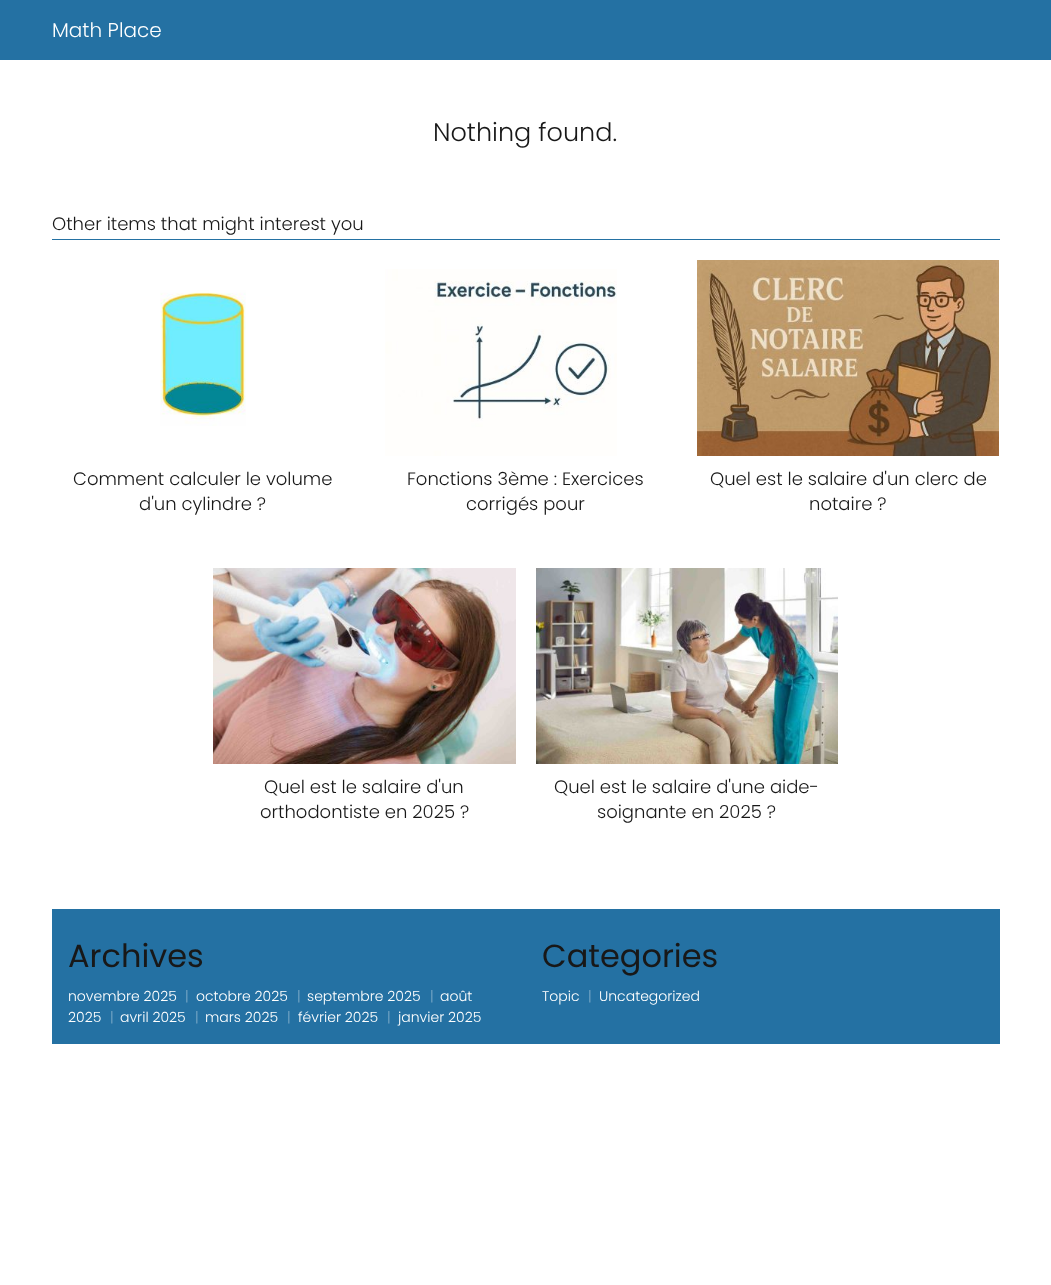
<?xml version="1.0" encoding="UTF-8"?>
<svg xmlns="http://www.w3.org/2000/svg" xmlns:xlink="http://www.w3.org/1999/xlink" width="1051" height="1285">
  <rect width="100%" height="100%" fill="#ffffff" />
  <rect width="1051" height="60" fill="#2471a3" />
  <rect x="52" y="239" width="948" height="1" fill="#2471a3" />
  <image x="160" y="290" width="86" height="136" xlink:href="image1.png" />
  <image x="385" y="269" width="232" height="187" xlink:href="image2.png" />
  <image x="697" y="260" width="302" height="196" xlink:href="image3.png" />
  <image x="213" y="568" width="303" height="196" xlink:href="image4.png" />
  <image x="536" y="568" width="302" height="196" xlink:href="image5.png" />
  <rect x="52" y="909" width="948" height="135" fill="#2471a3" />
  <text x="52" y="37" style="font-family: Poppins; font-size: 20px; font-weight: 300; fill: #ffffff">Math Place</text>
  <text x="433" y="141" style="font-family: Poppins; font-size: 25.5px; font-weight: 300; fill: #181818">Nothing found.</text>
  <text x="52" y="230" style="font-family: Poppins; font-size: 18px; font-weight: 300; fill: #181818">Other items that might interest you</text>
  <text x="73" y="485" style="font-family: Poppins; font-size: 18px; font-weight: 300; fill: #181818">Comment calculer le volume</text>
  <text x="139" y="510" style="font-family: Poppins; font-size: 18px; font-weight: 300; fill: #181818">d'un cylindre ?</text>
  <text x="407" y="485" style="font-family: Poppins; font-size: 18px; font-weight: 300; fill: #181818">Fonctions 3ème : Exercices</text>
  <text x="466" y="510" style="font-family: Poppins; font-size: 18px; font-weight: 300; fill: #181818">corrigés pour</text>
  <text x="710" y="485" style="font-family: Poppins; font-size: 18px; font-weight: 300; fill: #181818">Quel est le salaire d'un clerc de</text>
  <text x="809" y="510" style="font-family: Poppins; font-size: 18px; font-weight: 300; fill: #181818">notaire ?</text>
  <text x="264" y="793" style="font-family: Poppins; font-size: 18px; font-weight: 300; fill: #181818">Quel est le salaire d'un</text>
  <text x="260" y="818" style="font-family: Poppins; font-size: 18px; font-weight: 300; fill: #181818">orthodontiste en 2025 ?</text>
  <text x="554" y="793" style="font-family: Poppins; font-size: 18px; font-weight: 300; fill: #181818">Quel est le salaire d'une aide-</text>
  <text x="597" y="818" style="font-family: Poppins; font-size: 18px; font-weight: 300; fill: #181818">soignante en 2025 ?</text>
  <text x="68" y="967" style="font-family: Poppins; font-size: 32px; fill: #181818">Archives</text>
  <text x="68" y="1001" style="font-family: Poppins; font-size: 14px; font-weight: 300; fill: #ffffff">novembre 2025</text>
  <text x="185" y="1001" style="font-family: Poppins; font-size: 14px; font-weight: 300; fill: #7caac8">|</text>
  <text x="196" y="1001" style="font-family: Poppins; font-size: 14px; font-weight: 300; fill: #ffffff">octobre 2025</text>
  <text x="297" y="1001" style="font-family: Poppins; font-size: 14px; font-weight: 300; fill: #7caac8">|</text>
  <text x="307" y="1001" style="font-family: Poppins; font-size: 14px; font-weight: 300; fill: #ffffff">septembre 2025</text>
  <text x="430" y="1001" style="font-family: Poppins; font-size: 14px; font-weight: 300; fill: #7caac8">|</text>
  <text x="440" y="1001" style="font-family: Poppins; font-size: 14px; font-weight: 300; fill: #ffffff">août</text>
  <text x="68" y="1022" style="font-family: Poppins; font-size: 14px; font-weight: 300; fill: #ffffff">2025</text>
  <text x="110" y="1022" style="font-family: Poppins; font-size: 14px; font-weight: 300; fill: #7caac8">|</text>
  <text x="120" y="1022" style="font-family: Poppins; font-size: 14px; font-weight: 300; fill: #ffffff">avril 2025</text>
  <text x="195" y="1022" style="font-family: Poppins; font-size: 14px; font-weight: 300; fill: #7caac8">|</text>
  <text x="205" y="1022" style="font-family: Poppins; font-size: 14px; font-weight: 300; fill: #ffffff">mars 2025</text>
  <text x="287" y="1022" style="font-family: Poppins; font-size: 14px; font-weight: 300; fill: #7caac8">|</text>
  <text x="298" y="1022" style="font-family: Poppins; font-size: 14px; font-weight: 300; fill: #ffffff">février 2025</text>
  <text x="387" y="1022" style="font-family: Poppins; font-size: 14px; font-weight: 300; fill: #7caac8">|</text>
  <text x="398" y="1022" style="font-family: Poppins; font-size: 14px; font-weight: 300; fill: #ffffff">janvier 2025</text>
  <text x="542" y="967" style="font-family: Poppins; font-size: 32px; fill: #181818">Categories</text>
  <text x="542" y="1001" style="font-family: Poppins; font-size: 14px; font-weight: 300; fill: #ffffff">Topic</text>
  <text x="588" y="1001" style="font-family: Poppins; font-size: 14px; font-weight: 300; fill: #7caac8">|</text>
  <text x="599" y="1001" style="font-family: Poppins; font-size: 14px; font-weight: 300; fill: #ffffff">Uncategorized</text>
</svg>
